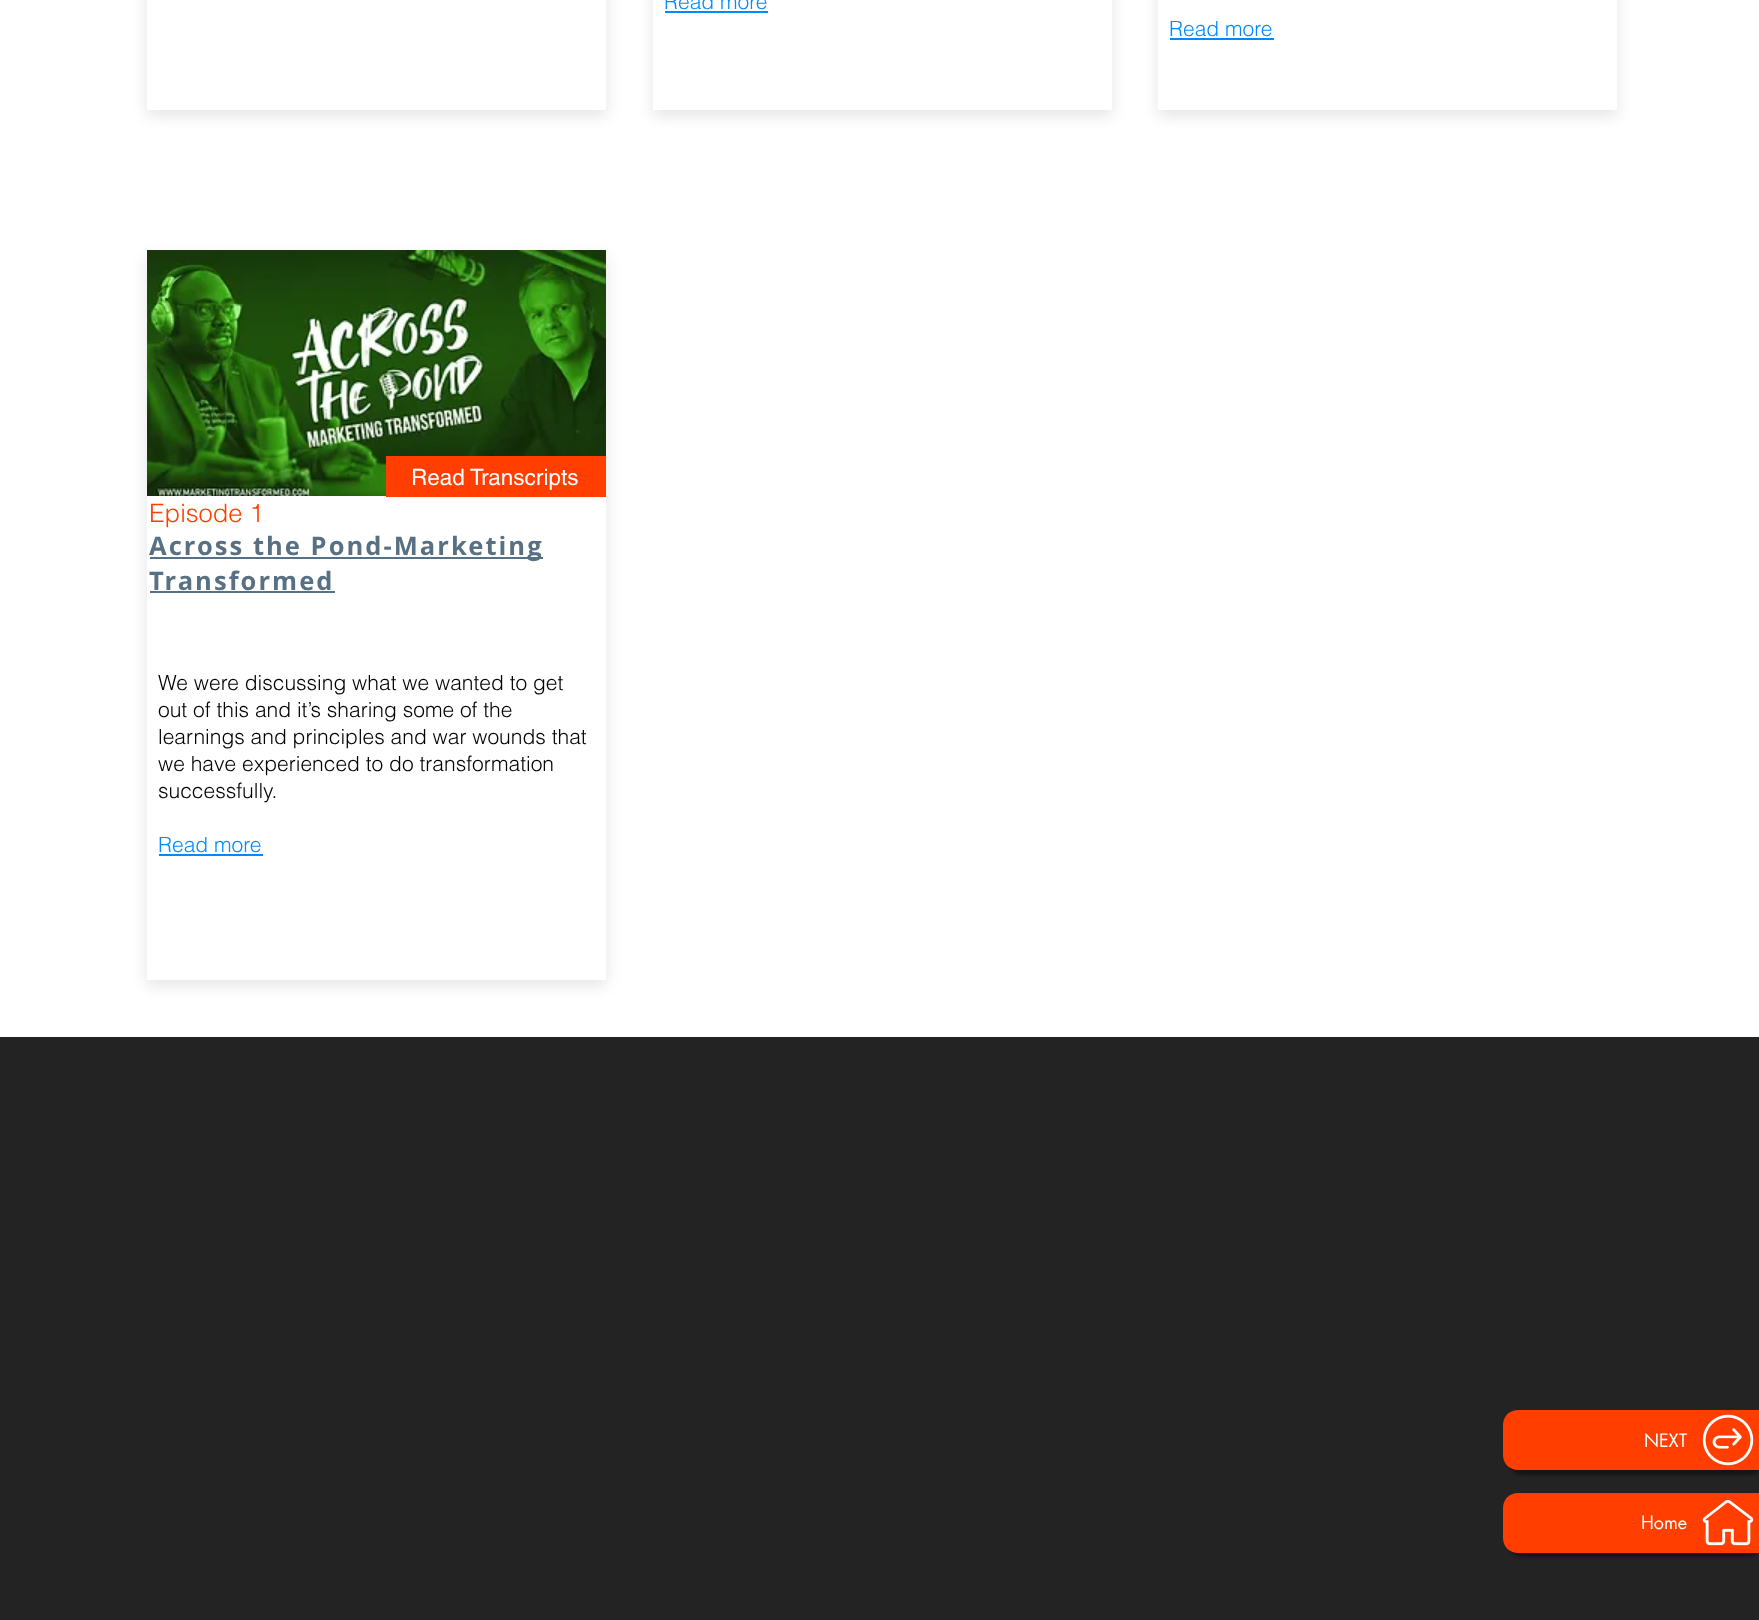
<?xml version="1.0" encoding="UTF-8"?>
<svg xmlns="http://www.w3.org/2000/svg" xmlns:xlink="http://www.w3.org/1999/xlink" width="1759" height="1620">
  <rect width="100%" height="100%" fill="#ffffff" />
  <rect x="147" y="-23" width="459" height="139" fill="#000000" fill-opacity="0.1" filter="blur(7.5px)" />
  <rect x="147" width="459" height="110" fill="#ffffff" />
  <rect x="653" y="-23" width="459" height="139" fill="#000000" fill-opacity="0.1" filter="blur(7.5px)" />
  <rect x="653" width="459" height="110" fill="#ffffff" />
  <rect x="665" y="11" width="103" height="2" fill="#008aff" />
  <rect x="1158" y="-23" width="459" height="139" fill="#000000" fill-opacity="0.1" filter="blur(7.5px)" />
  <rect x="1158" width="459" height="110" fill="#ffffff" />
  <rect x="1170" y="38" width="104" height="2" fill="#008aff" />
  <rect x="147" y="257" width="459" height="729" fill="#000000" fill-opacity="0.1" filter="blur(7.5px)" />
  <image x="147" y="250" width="459" height="246" xlink:href="image1.png" />
  <rect x="147" y="496" width="459" height="484" fill="#ffffff" />
  <rect x="386" y="456" width="220" height="41" fill="#ff3e00" />
  <rect x="150" y="557" width="393" height="2" fill="#577083" />
  <rect x="150" y="591" width="185" height="2" fill="#577083" />
  <rect x="159" y="854" width="104" height="2" fill="#008aff" />
  <rect y="1037" width="1759" height="583" fill="#242323" />
  <rect x="1508" y="1415" width="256" height="60" rx="15" fill="#000000" fill-opacity="0.4" filter="blur(1.5px)" />
  <path d="M 1518 1410 h 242 v 60 h -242 c -8.5 0 -15 -6.5 -15 -15 v -30 c 0 -8.5 6.5 -15 15 -15 z" fill="#ff3e00" />
  <image x="1702" y="1414" width="52" height="52" xlink:href="image2.png" />
  <rect x="1508" y="1497" width="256" height="60" rx="15" fill="#000000" fill-opacity="0.4" filter="blur(1.5px)" />
  <path d="M 1518 1493 h 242 v 60 h -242 c -8.5 0 -15 -6.5 -15 -15 v -30 c 0 -8.5 6.5 -15 15 -15 z" fill="#ff3e00" />
  <image x="1702" y="1499" width="52" height="47" xlink:href="image3.png" />
  <text x="664" y="9" style="font-family: helvetica; font-size: 21px; font-weight: 300; fill: #008aff">Read more</text>
  <text x="1169" y="36" style="font-family: helvetica; font-size: 21px; font-weight: 300; fill: #008aff">Read more</text>
  <text x="411" y="485" style="font-family: helvetica; font-size: 22.5px; fill: #ffffff">Read Transcripts</text>
  <text x="149" y="522" style="font-family: helvetica; font-size: 25.5px; font-weight: 300; fill: #ff3e00">Episode 1</text>
  <text x="149" y="555" style="font-family: Open Sans; font-size: 25.5px; font-weight: bold; letter-spacing: 2.05px; fill: #577083">Across the Pond-Marketing</text>
  <text x="149" y="590" style="font-family: Open Sans; font-size: 25.5px; font-weight: bold; letter-spacing: 2.05px; fill: #577083">Transformed</text>
  <text x="158" y="690" style="font-family: helvetica; font-size: 21px; font-weight: 300; fill: #000000">We were discussing what we wanted to get</text>
  <text x="158" y="717" style="font-family: helvetica; font-size: 21px; font-weight: 300; fill: #000000">out of this and it’s sharing some of the</text>
  <text x="158" y="744" style="font-family: helvetica; font-size: 21px; font-weight: 300; fill: #000000">learnings and principles and war wounds that</text>
  <text x="158" y="771" style="font-family: helvetica; font-size: 21px; font-weight: 300; fill: #000000">we have experienced to do transformation</text>
  <text x="158" y="798" style="font-family: helvetica; font-size: 21px; font-weight: 300; fill: #000000">successfully.</text>
  <text x="158" y="852" style="font-family: helvetica; font-size: 21px; font-weight: 300; fill: #008aff">Read more</text>
  <text x="1644" y="1447" style="font-family: futura; font-size: 18px; fill: #ffffff">NEXT</text>
  <text x="1641" y="1529" style="font-family: futura; font-size: 18px; fill: #ffffff">Home</text>
</svg>
